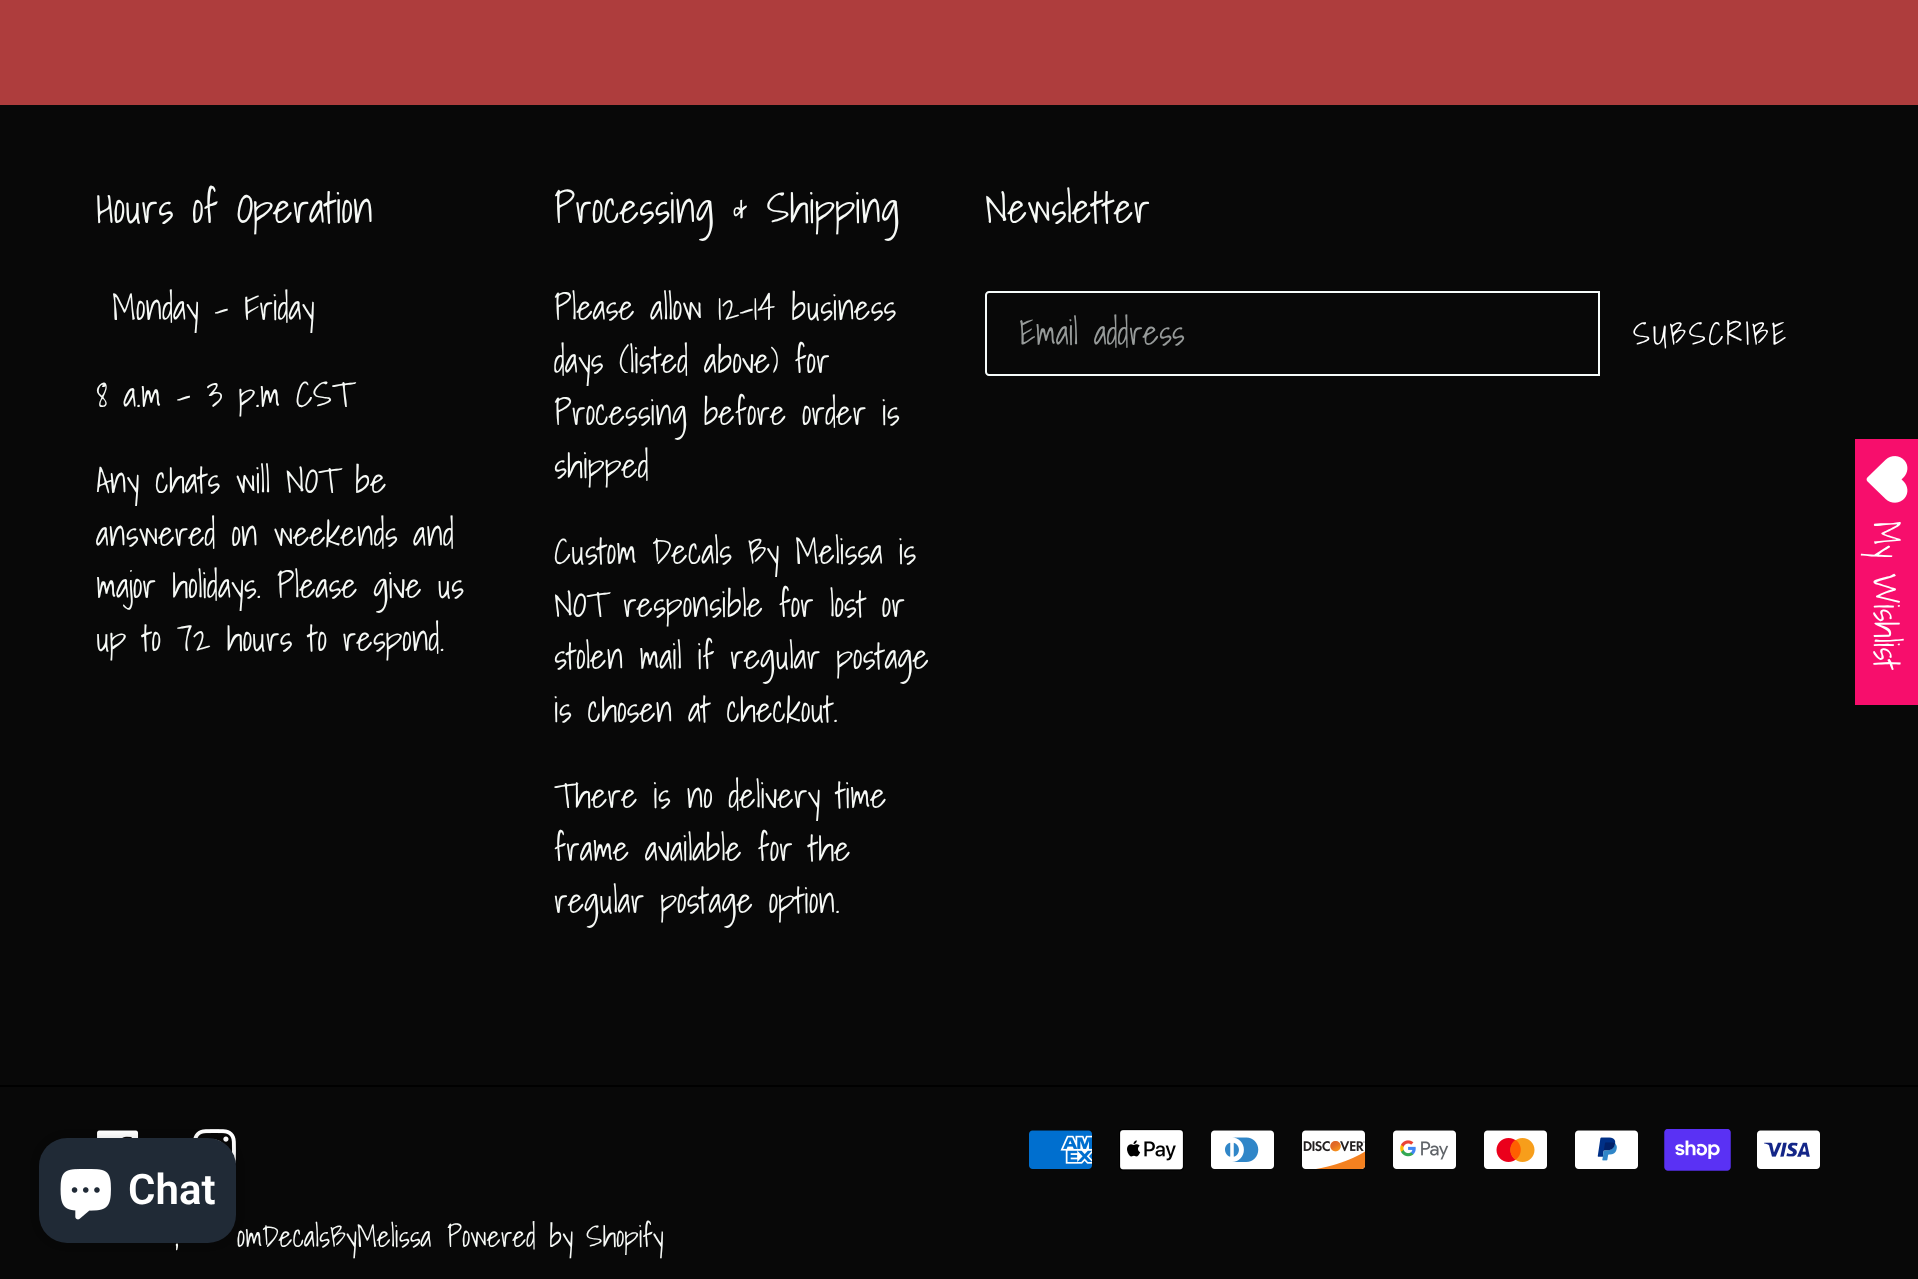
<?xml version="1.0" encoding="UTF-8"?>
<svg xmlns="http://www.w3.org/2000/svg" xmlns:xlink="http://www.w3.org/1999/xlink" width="1918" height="1279">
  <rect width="100%" height="100%" fill="#ae3d3d" />
  <rect y="105" width="1918" height="1174" fill="#080808" />
  <path d="M 989 292 h 610 v 83 h -610 c -1.5 0 -3 -1.5 -3 -3 v -77 c 0 -1.5 1.5 -3 3 -3 z" fill="none" stroke="#f6fcfb" stroke-width="2" />
  <rect y="1085" width="1918" height="2" fill="#000000" />
  <image x="97" y="1130" width="42" height="8" xlink:href="image1.png" />
  <image x="193" y="1129" width="43" height="35" xlink:href="image2.png" />
  <image x="1029" y="1130" width="63" height="39" xlink:href="image3.png" />
  <image x="1119" y="1129" width="65" height="42" xlink:href="image4.png" />
  <image x="1211" y="1130" width="63" height="39" xlink:href="image5.png" />
  <image x="1302" y="1130" width="64" height="39" xlink:href="image6.png" />
  <image x="1393" y="1130" width="63" height="39" xlink:href="image7.png" />
  <image x="1484" y="1130" width="63" height="39" xlink:href="image8.png" />
  <image x="1575" y="1130" width="63" height="39" xlink:href="image9.png" />
  <image x="1664" y="1129" width="67" height="42" xlink:href="image10.png" />
  <image x="1757" y="1130" width="63" height="39" xlink:href="image11.png" />
  <rect x="1855" y="439" width="63" height="266" fill="#f70e6c" />
  <image x="1866" y="456" width="42" height="47" xlink:href="image12.png" />
  <rect x="39" y="1138" width="197" height="105" rx="28" fill="#000000" fill-opacity="0.15" filter="blur(4.5px)" />
  <rect x="39" y="1138" width="197" height="105" rx="28" fill="#202a36" />
  <image x="60" y="1169" width="51" height="51" xlink:href="image13.png" />
  <text x="96" y="223" style="font-family: Shadows Into Light; font-size: 42px; fill: #f6f9f6">Hours of Operation</text>
  <text x="112" y="320" style="font-family: Shadows Into Light; font-size: 35px; fill: #f6f9f6">Monday - Friday</text>
  <text x="96" y="407" style="font-family: Shadows Into Light; font-size: 35px; fill: #f6f9f6">8 a.m - 3 p.m CST</text>
  <text x="96" y="493" style="font-family: Shadows Into Light; font-size: 35px; fill: #f6f9f6">Any chats will NOT be</text>
  <text x="96" y="546" style="font-family: Shadows Into Light; font-size: 35px; fill: #f6f9f6">answered on weekends and</text>
  <text x="96" y="598" style="font-family: Shadows Into Light; font-size: 35px; fill: #f6f9f6">major holidays. Please give us</text>
  <text x="96" y="651" style="font-family: Shadows Into Light; font-size: 35px; fill: #f6f9f6">up to 72 hours to respond.</text>
  <text x="554" y="223" style="font-family: Shadows Into Light; font-size: 42px; fill: #f6f9f6">Processing &amp; Shipping</text>
  <text x="554" y="320" style="font-family: Shadows Into Light; font-size: 35px; fill: #f6f9f6">Please allow 12-14 business</text>
  <text x="554" y="373" style="font-family: Shadows Into Light; font-size: 35px; fill: #f6f9f6">days (listed above) for</text>
  <text x="554" y="425" style="font-family: Shadows Into Light; font-size: 35px; fill: #f6f9f6">Processing before order is</text>
  <text x="554" y="478" style="font-family: Shadows Into Light; font-size: 35px; fill: #f6f9f6">shipped</text>
  <text x="554" y="564" style="font-family: Shadows Into Light; font-size: 35px; fill: #f6f9f6">Custom Decals By Melissa is</text>
  <text x="554" y="617" style="font-family: Shadows Into Light; font-size: 35px; fill: #f6f9f6">NOT responsible for lost or</text>
  <text x="554" y="669" style="font-family: Shadows Into Light; font-size: 35px; fill: #f6f9f6">stolen mail if regular postage</text>
  <text x="554" y="722" style="font-family: Shadows Into Light; font-size: 35px; fill: #f6f9f6">is chosen at checkout.</text>
  <text x="554" y="808" style="font-family: Shadows Into Light; font-size: 35px; fill: #f6f9f6">There is no delivery time</text>
  <text x="554" y="861" style="font-family: Shadows Into Light; font-size: 35px; fill: #f6f9f6">frame available for the</text>
  <text x="554" y="913" style="font-family: Shadows Into Light; font-size: 35px; fill: #f6f9f6">regular postage option.</text>
  <text x="985" y="223" style="font-family: Shadows Into Light; font-size: 42px; fill: #f6f9f6">Newsletter</text>
  <text x="1019" y="345" style="font-family: Shadows Into Light; font-size: 35px; fill: #979b9a">Email address</text>
  <text x="1633" y="345" style="font-family: Shadows Into Light; font-size: 31.5px; letter-spacing: 2.5px; fill: #ffffff">SUBSCRIBE</text>
  <text x="175" y="1247" style="font-family: Shadows Into Light; font-size: 29.75px; fill: #f6f9f6">,</text>
  <text x="237" y="1247" style="font-family: Shadows Into Light; font-size: 29.75px; fill: #f6f9f6">omDecalsByMelissa</text>
  <text x="447" y="1247" style="font-family: Shadows Into Light; font-size: 29.75px; fill: #f6f9f6">Powered by Shopify</text>
  <text x="1874" y="521" transform="rotate(90 1874 521)" style="font-family: Shadows Into Light; font-size: 35px; fill: #ffffff">My Wishlist</text>
  <text x="128" y="1204" style="font-family: Roboto; font-size: 42px; font-weight: 600; fill: #ffffff">Chat</text>
</svg>
